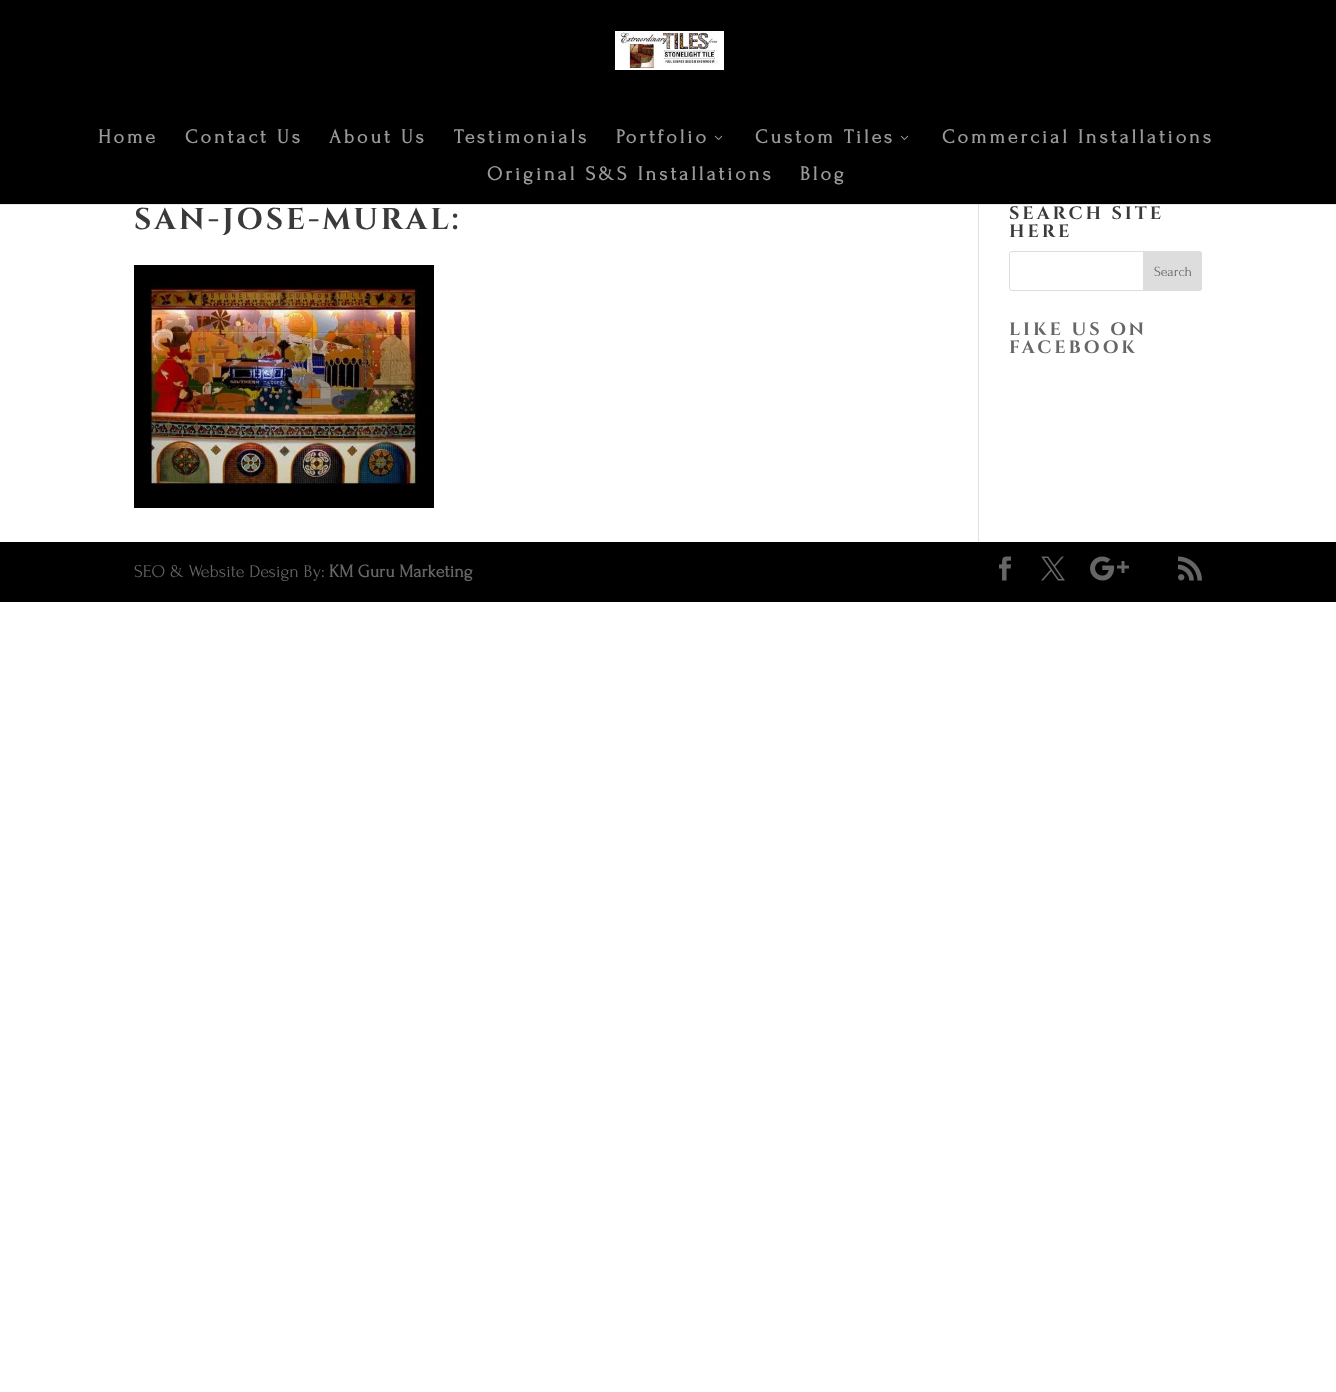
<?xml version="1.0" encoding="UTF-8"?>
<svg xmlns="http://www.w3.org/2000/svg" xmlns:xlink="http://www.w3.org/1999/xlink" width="1336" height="1392">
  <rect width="100%" height="100%" fill="#ffffff" />
  <rect y="204" width="1336" height="1" fill="#e6e6e6" />
  <rect width="1336" height="204" fill="#000000" />
  <image x="615" y="31" width="109" height="39" xlink:href="image1.png" />
  <image x="714" y="135" width="9" height="5" xlink:href="image2.png" />
  <image x="900" y="135" width="9" height="5" xlink:href="image2.png" />
  <rect x="978" y="205" width="1" height="337" fill="#e2e2e2" />
  <rect x="978" y="204" width="1" height="1" fill="#cbcbcb" />
  <image x="134" y="265" width="300" height="243" xlink:href="image3.png" />
  <rect x="1009.5" y="251.5" width="192" height="39" rx="2.5" fill="none" stroke="#dddddd" />
  <path d="M 1143.5 251.5 h 55.5 c 1.5 0 2.5 1 2.5 2.5 v 34 c 0 1.5 -1 2.5 -2.5 2.5 h -55.5 z" fill="#dddddd" stroke="#dddddd" />
  <rect y="542" width="1336" height="60" fill="#000000" />
  <image x="999" y="556" width="12" height="25" xlink:href="image4.png" />
  <image x="1041" y="556" width="24" height="25" xlink:href="image5.png" />
  <image x="1090" y="556" width="39" height="25" xlink:href="image6.png" />
  <image x="1178" y="556" width="24" height="25" xlink:href="image7.png" />
  <text x="98" y="143" style="font-family: Forum; font-size: 20px; font-weight: bold; letter-spacing: 3px; fill: #999999">Home</text>
  <text x="185" y="143" style="font-family: Forum; font-size: 20px; font-weight: bold; letter-spacing: 3px; fill: #999999">Contact Us</text>
  <text x="329" y="143" style="font-family: Forum; font-size: 20px; font-weight: bold; letter-spacing: 3px; fill: #999999">About Us</text>
  <text x="454" y="143" style="font-family: Forum; font-size: 20px; font-weight: bold; letter-spacing: 3px; fill: #999999">Testimonials</text>
  <text x="616" y="143" style="font-family: Forum; font-size: 20px; font-weight: bold; letter-spacing: 3px; fill: #999999">Portfolio</text>
  <text x="755" y="143" style="font-family: Forum; font-size: 20px; font-weight: bold; letter-spacing: 3px; fill: #999999">Custom Tiles</text>
  <text x="942" y="143" style="font-family: Forum; font-size: 20px; font-weight: bold; letter-spacing: 3px; fill: #999999">Commercial Installations</text>
  <text x="487" y="180" style="font-family: Forum; font-size: 20px; font-weight: bold; letter-spacing: 3px; fill: #999999">Original S&amp;S Installations</text>
  <text x="800" y="180" style="font-family: Forum; font-size: 20px; font-weight: bold; letter-spacing: 3px; fill: #999999">Blog</text>
  <text x="134" y="229" style="font-family: Cinzel; font-size: 30px; font-weight: bold; letter-spacing: 3px; fill: #3a3a3a">SAN-JOSE-MURAL:</text>
  <text x="1009" y="219" style="font-family: Cinzel; font-size: 18px; font-weight: bold; letter-spacing: 3px; fill: #3a3a3a">SEARCH SITE</text>
  <text x="1009" y="237" style="font-family: Cinzel; font-size: 18px; font-weight: bold; letter-spacing: 3px; fill: #3a3a3a">HERE</text>
  <text x="1154" y="276" style="font-family: Forum; font-size: 14px; fill: #666666">Search</text>
  <text x="1009" y="335" style="font-family: Cinzel; font-size: 18px; font-weight: bold; letter-spacing: 3px; fill: #666666">LIKE US ON</text>
  <text x="1009" y="353" style="font-family: Cinzel; font-size: 18px; font-weight: bold; letter-spacing: 3px; fill: #666666">FACEBOOK</text>
  <text x="134" y="577" style="font-family: Forum; font-size: 18px; fill: #666666">SEO &amp; Website Design By:</text>
  <text x="329" y="577" style="font-family: Forum; font-size: 18px; font-weight: bold; fill: #666666">KM Guru Marketing</text>
</svg>
